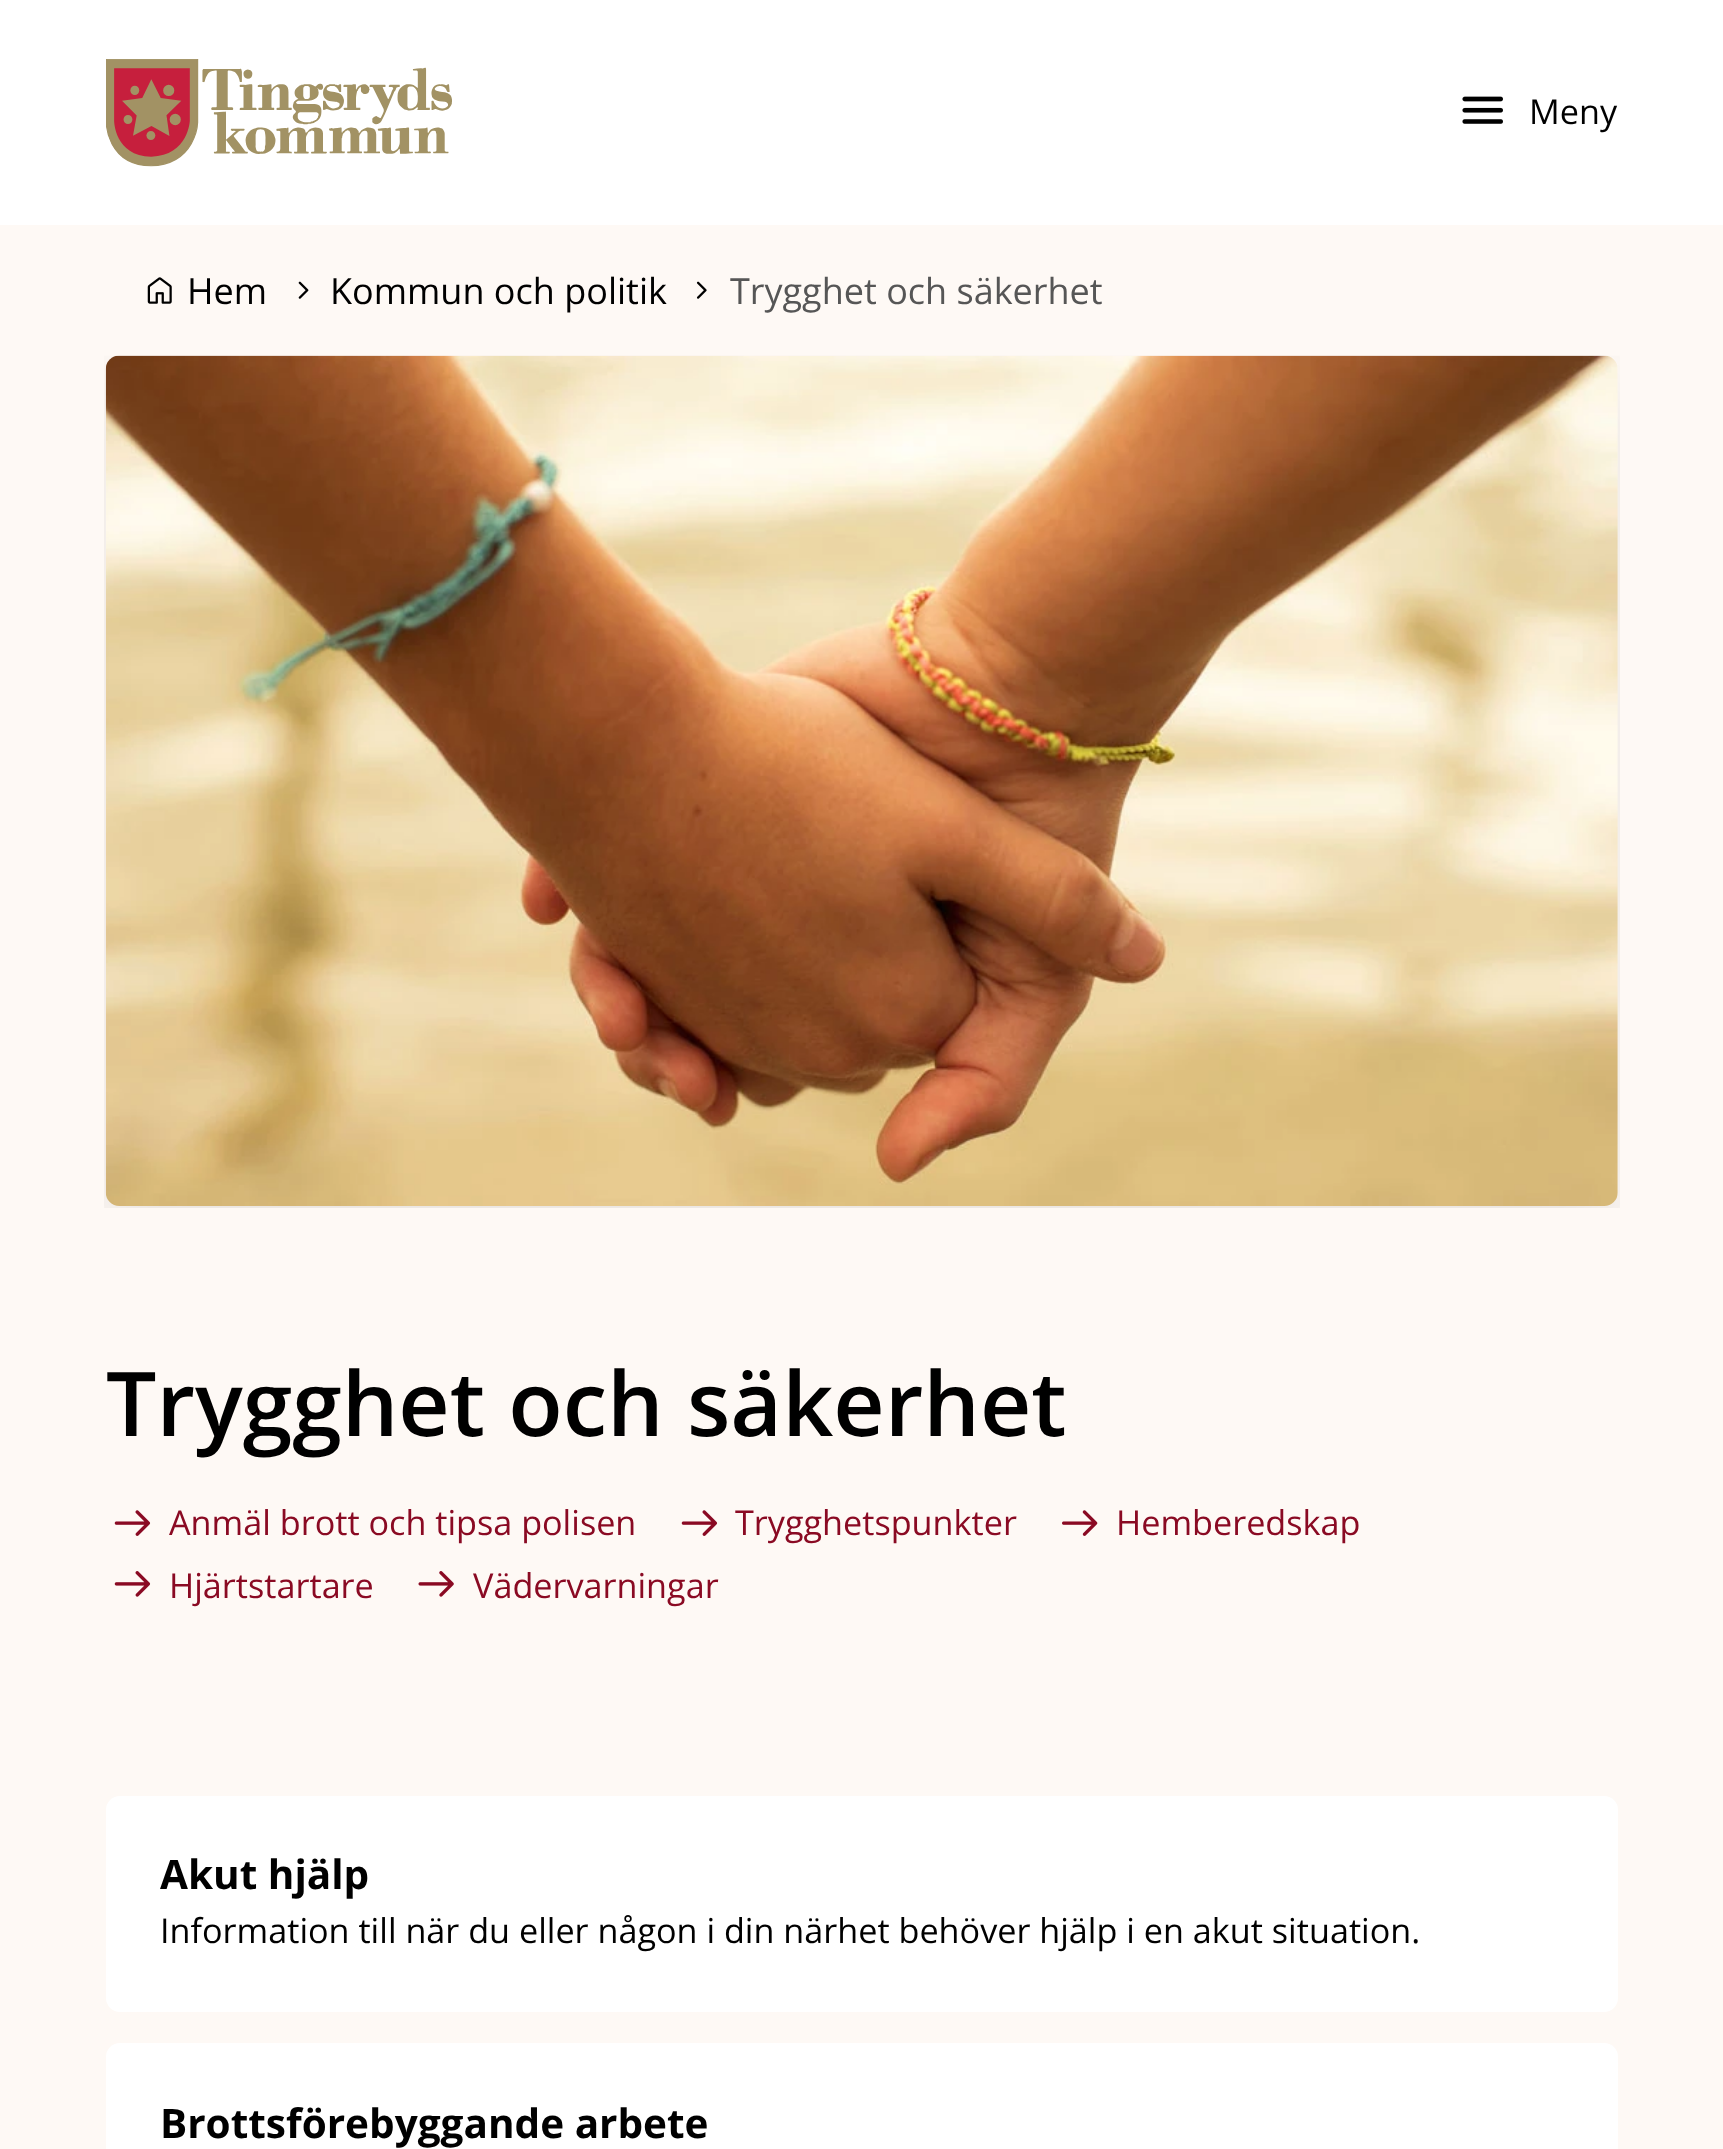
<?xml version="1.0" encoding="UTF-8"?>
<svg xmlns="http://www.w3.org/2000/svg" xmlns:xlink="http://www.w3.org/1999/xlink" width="1723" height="2149">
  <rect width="100%" height="100%" fill="#fef9f5" />
  <rect width="1723" height="225" fill="#ffffff" />
  <image x="106" y="59" width="346" height="108" xlink:href="image1.png" />
  <image x="1462" y="96" width="41" height="28" xlink:href="image2.png" />
  <image x="147" y="277" width="25" height="27" xlink:href="image3.png" />
  <image x="298" y="281" width="11" height="18" xlink:href="image4.png" />
  <image x="696" y="281" width="11" height="18" xlink:href="image5.png" />
  <image x="104" y="355" width="1516" height="853" xlink:href="image6.png" />
  <image x="114" y="1510" width="37" height="26" xlink:href="image7.png" />
  <image x="681" y="1510" width="37" height="26" xlink:href="image7.png" />
  <image x="1062" y="1510" width="36" height="26" xlink:href="image8.png" />
  <image x="114" y="1571" width="37" height="26" xlink:href="image9.png" />
  <image x="418" y="1571" width="36" height="26" xlink:href="image10.png" />
  <rect x="106" y="1796" width="1512" height="216" rx="14" fill="#ffffff" />
  <rect x="106" y="2043" width="1512" height="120" rx="14" fill="#ffffff" />
  <text x="1529" y="124" style="font-family: Open Sans; font-size: 34.2px; fill: #000000">Meny</text>
  <text x="187" y="304" style="font-family: Open Sans; font-size: 36px; fill: #000000">Hem</text>
  <text x="330" y="304" style="font-family: Open Sans; font-size: 36px; fill: #000000">Kommun och politik</text>
  <text x="730" y="304" style="font-family: Open Sans; font-size: 36px; fill: #565656">Trygghet och säkerhet</text>
  <text x="106" y="1436" style="font-family: Open Sans; font-size: 89.25px; font-weight: 600; fill: #000000">Trygghet och säkerhet</text>
  <text x="169" y="1535" style="font-family: Open Sans; font-size: 34.2px; fill: #8a0a23">Anmäl brott och tipsa polisen</text>
  <text x="735" y="1535" style="font-family: Open Sans; font-size: 34.2px; fill: #8a0a23">Trygghetspunkter</text>
  <text x="1116" y="1535" style="font-family: Open Sans; font-size: 34.2px; fill: #8a0a23">Hemberedskap</text>
  <text x="169" y="1598" style="font-family: Open Sans; font-size: 34.2px; fill: #8a0a23">Hjärtstartare</text>
  <text x="473" y="1598" style="font-family: Open Sans; font-size: 34.2px; fill: #8a0a23">Vädervarningar</text>
  <text x="160" y="1889" style="font-family: Open Sans; font-size: 40.5px; font-weight: bold; fill: #000000">Akut hjälp</text>
  <text x="160" y="1943" style="font-family: Open Sans; font-size: 34.2px; fill: #000000">Information till när du eller någon i din närhet behöver hjälp i en akut situation.</text>
  <text x="160" y="2138" style="font-family: Open Sans; font-size: 40.5px; font-weight: bold; fill: #000000">Brottsförebyggande arbete</text>
</svg>
